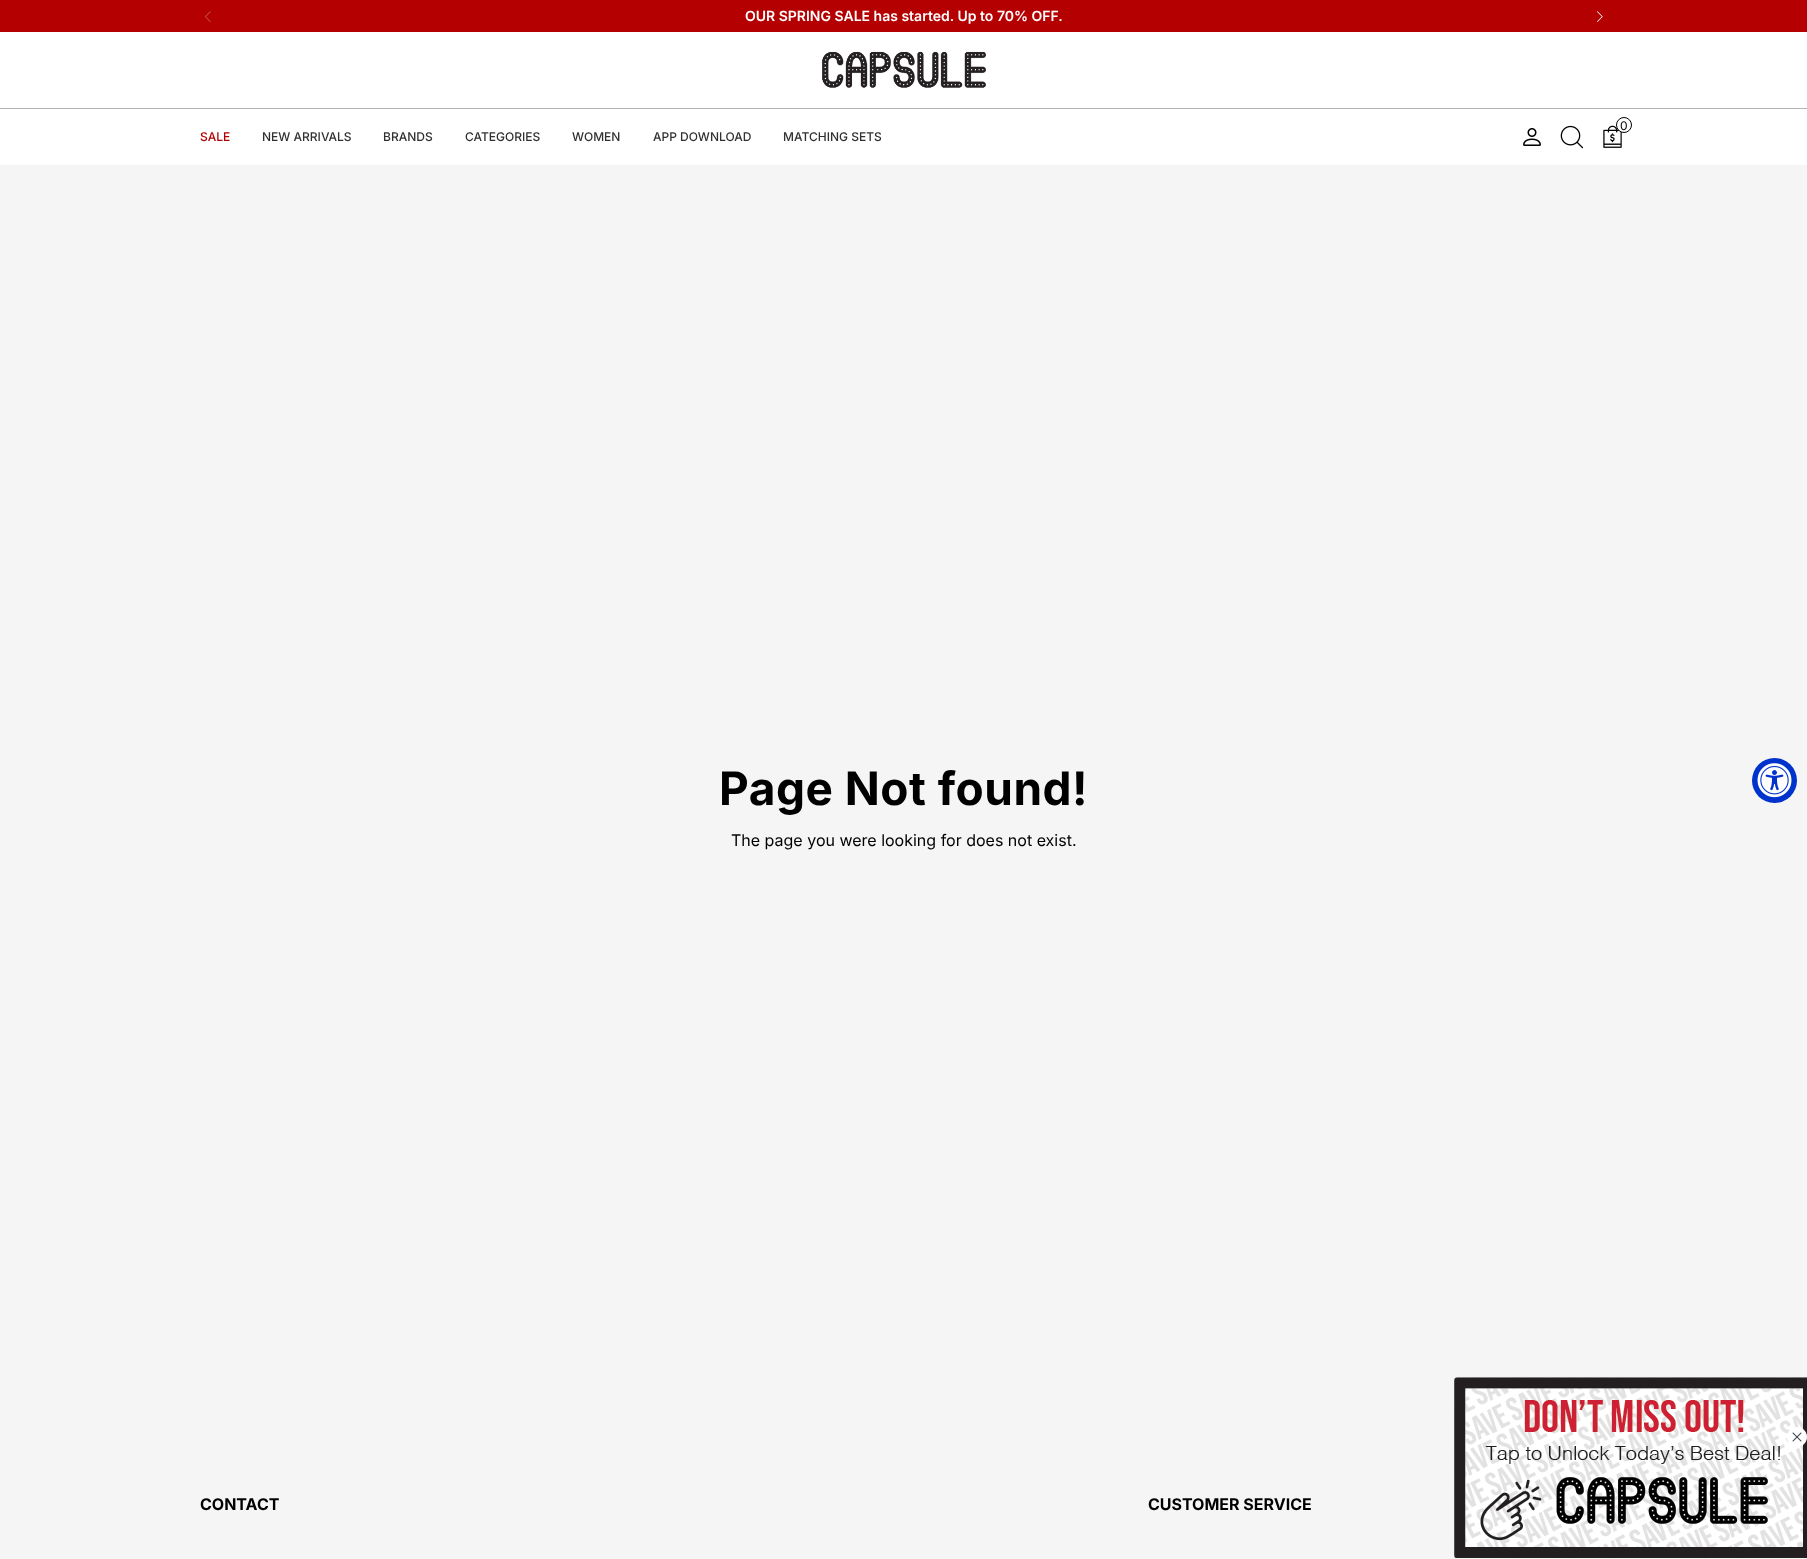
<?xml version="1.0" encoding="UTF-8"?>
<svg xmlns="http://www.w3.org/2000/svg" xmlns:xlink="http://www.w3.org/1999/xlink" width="1807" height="1559">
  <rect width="100%" height="100%" fill="#f5f5f5" />
  <rect width="1807" height="32" fill="#b40000" />
  <image x="205" y="11" width="6" height="11" xlink:href="image1.png" />
  <image x="1597" y="11" width="6" height="11" xlink:href="image2.png" />
  <rect y="32" width="1807" height="133" fill="#ffffff" />
  <image x="822" y="51" width="164" height="37" xlink:href="image3.png" />
  <rect y="108" width="1807" height="1" fill="#b3b3b3" />
  <image x="1523" y="128" width="18" height="18" xlink:href="image4.png" />
  <image x="1560" y="125" width="24" height="24" xlink:href="image5.png" />
  <image x="1603" y="125" width="19" height="23" xlink:href="image6.png" />
  <circle cx="1624" cy="125" r="7.5" fill="#ffffff" stroke="#000000" />
  <circle cx="1774.5" cy="780.5" r="22.5" fill="#0033cc" />
  <image x="1757" y="763" width="35" height="35" xlink:href="image7.png" />
  <image x="1454" y="1377" width="353" height="181" xlink:href="image8.png" />
  <image x="1787" y="1427" width="20" height="20" xlink:href="image9.png" />
  <text x="745" y="21" style="font-family: Inter; font-size: 14px; font-weight: 600; fill: #ffffff">OUR SPRING SALE has started. Up to 70% OFF.</text>
  <text x="1620" y="130" style="font-family: Inter; font-size: 12px; fill: #000000">0</text>
  <text x="200" y="141" style="font-family: Inter; font-size: 12px; font-weight: 500; fill: #b40000">SALE</text>
  <text x="262" y="141" style="font-family: Inter; font-size: 12px; font-weight: 500; fill: #322f31">NEW ARRIVALS</text>
  <text x="383" y="141" style="font-family: Inter; font-size: 12px; font-weight: 500; fill: #322f31">BRANDS</text>
  <text x="465" y="141" style="font-family: Inter; font-size: 12px; font-weight: 500; fill: #322f31">CATEGORIES</text>
  <text x="572" y="141" style="font-family: Inter; font-size: 12px; font-weight: 500; fill: #322f31">WOMEN</text>
  <text x="653" y="141" style="font-family: Inter; font-size: 12px; font-weight: 500; fill: #322f31">APP DOWNLOAD</text>
  <text x="783" y="141" style="font-family: Inter; font-size: 12px; font-weight: 500; fill: #322f31">MATCHING SETS</text>
  <text x="719" y="805" style="font-family: Inter; font-size: 46px; font-weight: bold; letter-spacing: 0.5px; fill: #000000">Page Not found!</text>
  <text x="731" y="846" style="font-family: Inter; font-size: 16px; fill: #000000">The page you were looking for does not exist.</text>
  <text x="200" y="1510" style="font-family: Inter; font-size: 16px; font-weight: bold; fill: #000000">CONTACT</text>
  <text x="1148" y="1510" style="font-family: Inter; font-size: 16px; font-weight: bold; fill: #000000">CUSTOMER SERVICE</text>
</svg>
